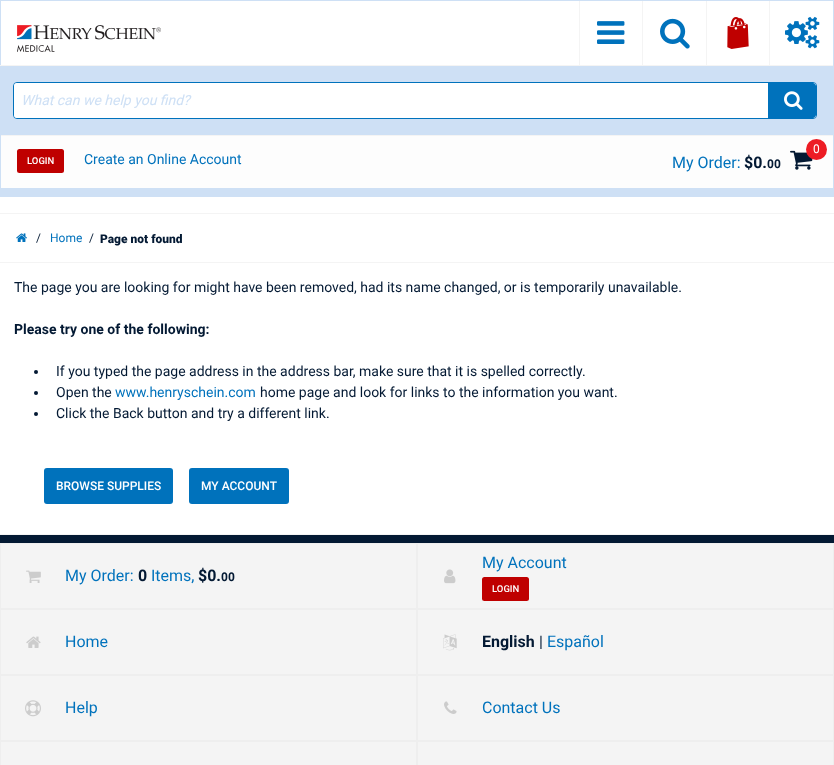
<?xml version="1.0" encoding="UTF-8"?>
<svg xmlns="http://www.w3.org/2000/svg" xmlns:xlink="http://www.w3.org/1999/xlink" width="834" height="765">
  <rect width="100%" height="100%" fill="#f4f4f4" />
  <rect y="189" width="834" height="8" fill="#cee0f5" />
  <rect x="0.5" y="0.5" width="833" height="188" fill="none" stroke="#cee0f5" />
  <rect x="1" y="1" width="832" height="64" fill="#ffffff" />
  <image x="17" y="25" width="144" height="27" xlink:href="image1.png" />
  <rect x="579" y="1" width="1" height="64" fill="#f4f4f4" />
  <image x="597" y="21" width="28" height="23" xlink:href="image2.png" />
  <rect x="642" y="1" width="1" height="64" fill="#f4f4f4" />
  <image x="660" y="18" width="30" height="31" xlink:href="image3.png" />
  <rect x="706" y="1" width="1" height="64" fill="#f4f4f4" />
  <image x="727" y="17" width="22" height="32" xlink:href="image4.png" />
  <rect x="769" y="1" width="1" height="64" fill="#f4f4f4" />
  <image x="785" y="16" width="35" height="33" xlink:href="image5.png" />
  <rect x="1" y="66" width="832" height="69" fill="#cee0f5" />
  <rect y="65" width="1" height="1" fill="#f4f4f4" />
  <rect x="13.5" y="82.5" width="803" height="36" rx="3.5" fill="none" stroke="#0072bc" />
  <rect x="14" y="83" width="802" height="35" rx="3" fill="#ffffff" />
  <path d="M 768 83 h 45 c 1.5 0 3 1.5 3 3 v 29 c 0 1.5 -1.5 3 -3 3 h -45 z" fill="#0072bc" />
  <image x="784" y="91" width="19" height="19" xlink:href="image6.png" />
  <rect x="1" y="136" width="832" height="52" fill="#fdfdfd" />
  <rect x="17" y="149" width="47" height="24" rx="2.5" fill="#bf0000" />
  <image x="790" y="150" width="23" height="20" xlink:href="image7.png" />
  <circle cx="816.5" cy="149.5" r="10.5" fill="#ed1c24" />
  <rect y="197" width="834" height="337" fill="#ffffff" />
  <rect y="213" width="834" height="1" fill="#f4f4f4" />
  <rect y="262" width="834" height="1" fill="#f4f4f4" />
  <image x="16" y="233" width="11" height="9" xlink:href="image8.png" />
  <circle cx="36" cy="372" r="2" fill="#031933" />
  <circle cx="36" cy="393" r="2" fill="#031933" />
  <circle cx="36" cy="414" r="2" fill="#031933" />
  <rect x="44" y="468" width="129" height="36" rx="3" fill="#0072bc" />
  <rect x="189" y="468" width="100" height="36" rx="3" fill="#0072bc" />
  <rect y="535" width="834" height="8" fill="#031933" />
  <rect x="0.5" y="543.5" width="416" height="65" fill="none" stroke="#eeeeee" />
  <image x="26" y="570" width="15" height="13" xlink:href="image9.png" />
  <rect x="417.5" y="543.5" width="416" height="65" fill="none" stroke="#eeeeee" />
  <image x="444" y="569" width="12" height="15" xlink:href="image10.png" />
  <rect x="482" y="577" width="47" height="24" rx="2.5" fill="#bf0000" />
  <rect x="0.5" y="609.5" width="416" height="65" fill="none" stroke="#eeeeee" />
  <image x="26" y="636" width="15" height="12" xlink:href="image11.png" />
  <rect x="417.5" y="609.5" width="416" height="65" fill="none" stroke="#eeeeee" />
  <image x="443" y="634" width="14" height="17" xlink:href="image12.png" />
  <rect x="0.5" y="675.5" width="416" height="65" fill="none" stroke="#eeeeee" />
  <image x="25" y="700" width="16" height="17" xlink:href="image13.png" />
  <rect x="417.5" y="675.5" width="416" height="65" fill="none" stroke="#eeeeee" />
  <image x="444" y="701" width="13" height="13" xlink:href="image14.png" />
  <rect x="0.5" y="741.5" width="416" height="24" fill="none" stroke="#eeeeee" />
  <rect x="417.5" y="741.5" width="416" height="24" fill="none" stroke="#eeeeee" />
  <text x="21" y="105" style="font-family: Roboto; font-size: 14px; font-style: italic; fill: #cee0f5">What can we help you find?</text>
  <text x="27" y="164" style="font-family: Roboto; font-size: 9.5px; font-weight: 500; fill: #ffffff">LOGIN</text>
  <text x="84" y="164" style="font-family: Roboto; font-size: 14px; fill: #0072bc">Create an Online Account</text>
  <text x="813" y="153" style="font-family: Roboto; font-size: 12px; fill: #ffffff">0</text>
  <text x="672" y="168" style="font-family: Roboto; font-size: 16px; fill: #0072bc">My Order:</text>
  <text x="744" y="168" style="font-family: Roboto; font-size: 16px; font-weight: bold; fill: #031933">$0.</text>
  <text x="767" y="168" style="font-family: Roboto; font-size: 12px; font-weight: bold; fill: #031933">00</text>
  <text x="36" y="242" style="font-family: Roboto; font-size: 12px; fill: #031933">/</text>
  <text x="50" y="242" style="font-family: Roboto; font-size: 12px; fill: #0072bc">Home</text>
  <text x="89" y="242" style="font-family: Roboto; font-size: 12px; fill: #031933">/</text>
  <text x="100" y="243" style="font-family: Roboto; font-size: 12px; font-weight: 900; fill: #031933">Page not found</text>
  <text x="14" y="292" style="font-family: Roboto; font-size: 14px; fill: #031933">The page you are looking for might have been removed, had its name changed, or is temporarily unavailable.</text>
  <text x="14" y="334" style="font-family: Roboto; font-size: 14px; font-weight: bold; fill: #031933">Please try one of the following:</text>
  <text x="56" y="376" style="font-family: Roboto; font-size: 14px; fill: #031933">If you typed the page address in the address bar, make sure that it is spelled correctly.</text>
  <text x="56" y="397" style="font-family: Roboto; font-size: 14px; fill: #031933">Open the</text>
  <text x="115" y="397" style="font-family: Roboto; font-size: 14px; fill: #0072bc">www.henryschein.com</text>
  <text x="260" y="397" style="font-family: Roboto; font-size: 14px; fill: #031933">home page and look for links to the information you want.</text>
  <text x="56" y="418" style="font-family: Roboto; font-size: 14px; fill: #031933">Click the Back button and try a different link.</text>
  <text x="56" y="490" style="font-family: Roboto; font-size: 12px; font-weight: 500; fill: #ffffff">BROWSE SUPPLIES</text>
  <text x="201" y="490" style="font-family: Roboto; font-size: 12px; font-weight: 500; fill: #ffffff">MY ACCOUNT</text>
  <text x="65" y="581" style="font-family: Roboto; font-size: 16px; fill: #0072bc">My Order:</text>
  <text x="138" y="581" style="font-family: Roboto; font-size: 16px; font-weight: bold; fill: #031933">0</text>
  <text x="151" y="581" style="font-family: Roboto; font-size: 16px; fill: #0072bc">Items,</text>
  <text x="198" y="581" style="font-family: Roboto; font-size: 16px; font-weight: bold; fill: #031933">$0.</text>
  <text x="221" y="581" style="font-family: Roboto; font-size: 12px; font-weight: bold; fill: #031933">00</text>
  <text x="482" y="568" style="font-family: Roboto; font-size: 16px; fill: #0072bc">My Account</text>
  <text x="492" y="592" style="font-family: Roboto; font-size: 9.5px; font-weight: 500; fill: #ffffff">LOGIN</text>
  <text x="65" y="647" style="font-family: Roboto; font-size: 16px; fill: #0072bc">Home</text>
  <text x="482" y="647" style="font-family: Roboto; font-size: 16px; font-weight: bold; fill: #031933">English</text>
  <text x="539" y="647" style="font-family: Roboto; font-size: 16px; fill: #031933">|</text>
  <text x="547" y="647" style="font-family: Roboto; font-size: 16px; fill: #0072bc">Español</text>
  <text x="65" y="713" style="font-family: Roboto; font-size: 16px; fill: #0072bc">Help</text>
  <text x="482" y="713" style="font-family: Roboto; font-size: 16px; fill: #0072bc">Contact Us</text>
</svg>
